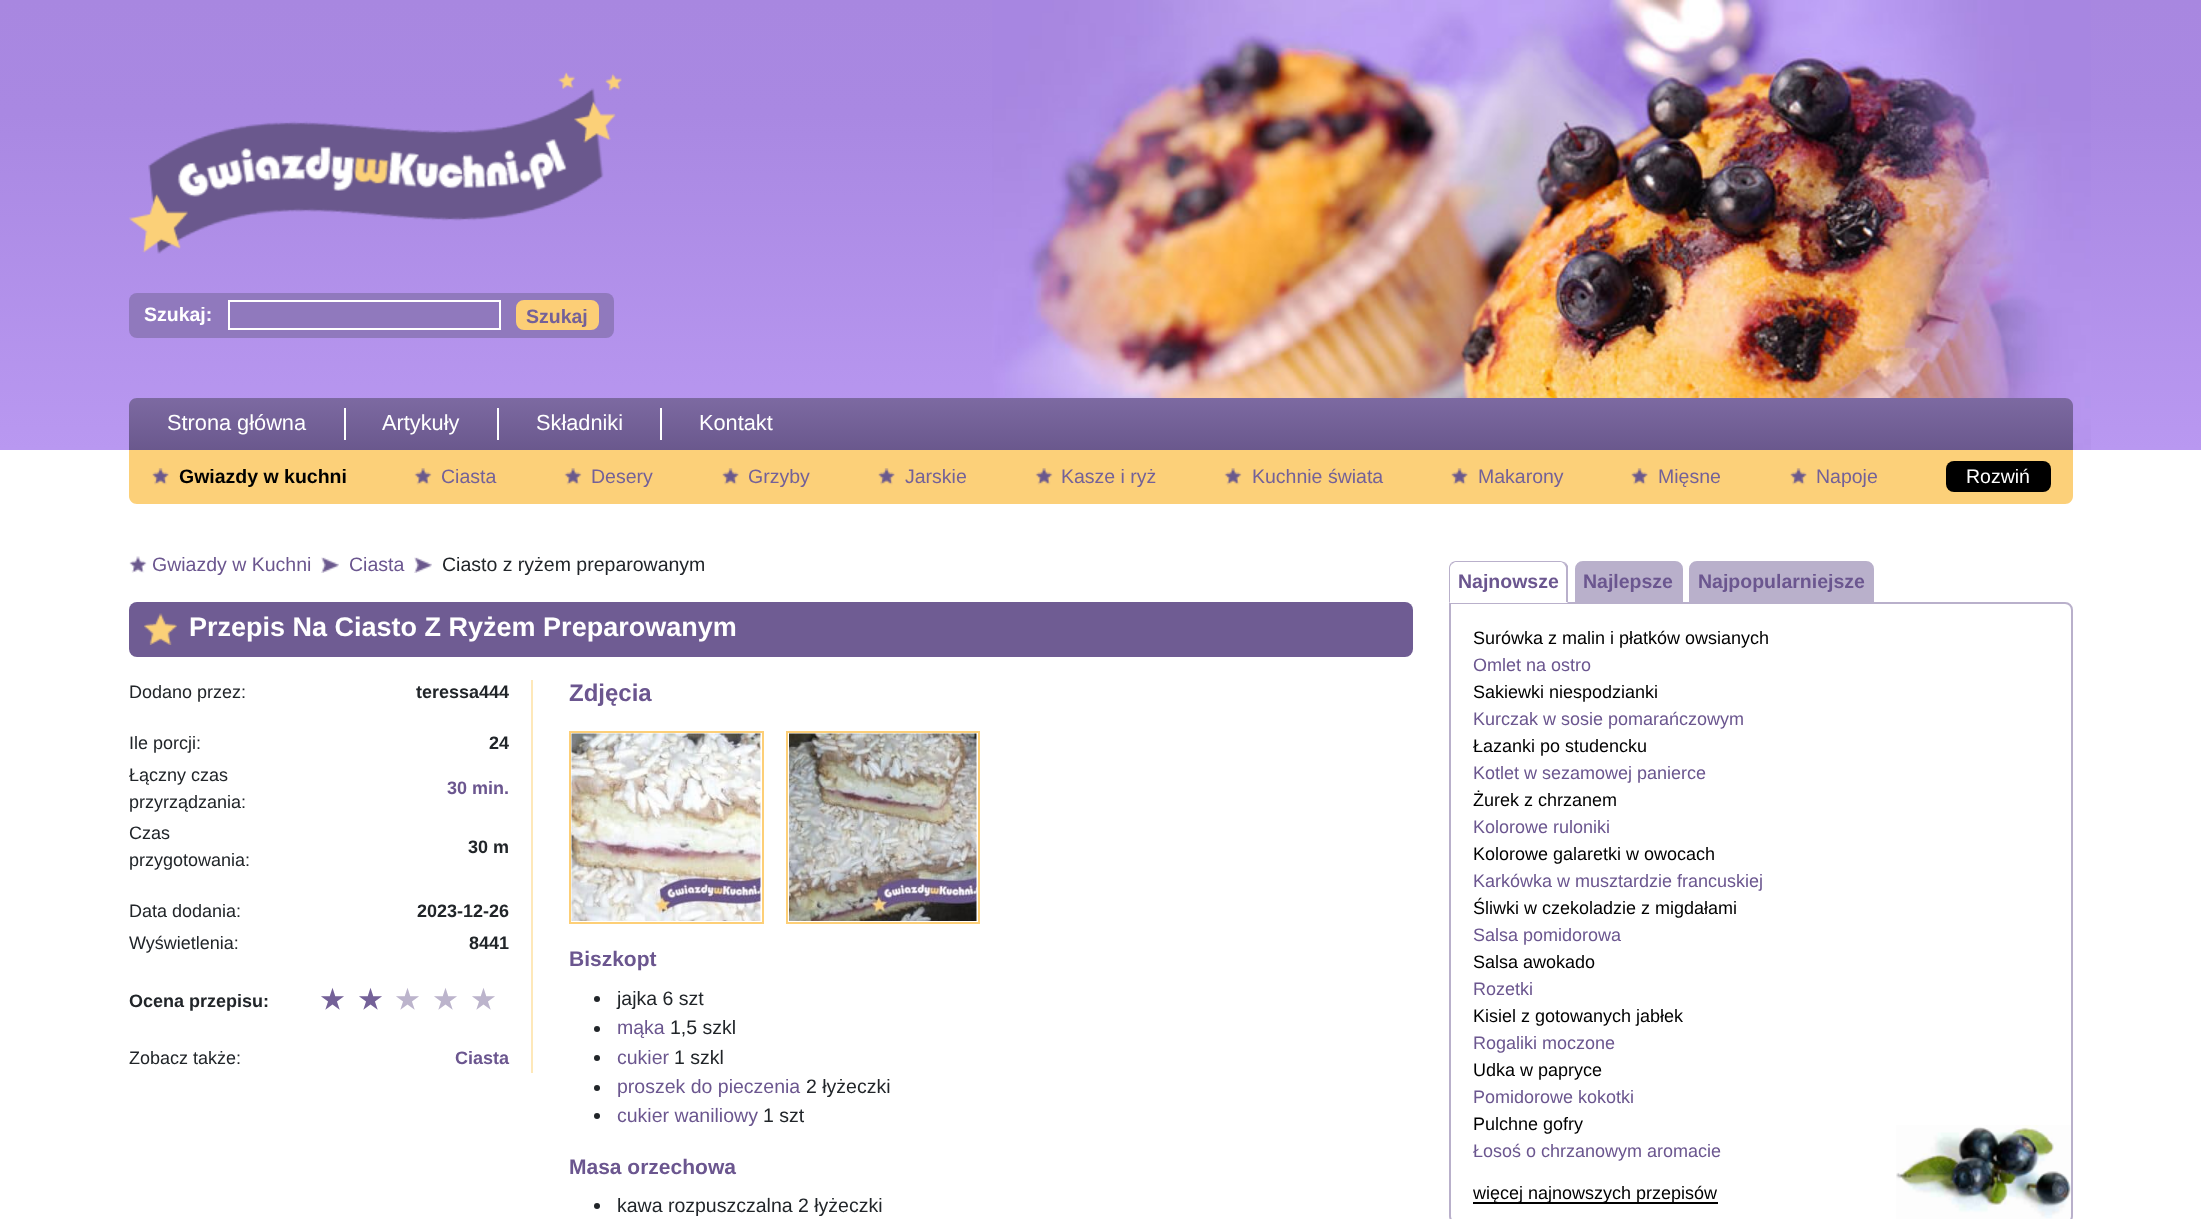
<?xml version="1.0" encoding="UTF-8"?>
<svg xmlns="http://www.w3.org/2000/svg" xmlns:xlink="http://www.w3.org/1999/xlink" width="2201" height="1219">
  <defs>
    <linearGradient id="g1" gradientUnits="userSpaceOnUse" x1="1101" y1="0" x2="1101" y2="450"><stop offset="0" stop-color="#a887e0" /><stop offset="0.25" stop-color="#a988e2" /><stop offset="1" stop-color="#b998f1" /></linearGradient>
    <linearGradient id="g2" gradientUnits="userSpaceOnUse" x1="1101" y1="397" x2="1101" y2="450"><stop offset="0" stop-color="#7d6aa2" /><stop offset="1" stop-color="#6a588d" /></linearGradient>
  </defs>
  <rect width="100%" height="100%" fill="#ffffff" />
  <rect width="2201" height="450" fill="url(#g1)" />
  <image x="992" y="0" width="1099" height="450" xlink:href="image1.png" />
  <image x="129" y="72" width="493" height="182" xlink:href="image2.png" />
  <rect x="129" y="293" width="485" height="45" rx="8" fill="#9079bd" />
  <rect x="229" y="301" width="271" height="28" fill="none" stroke="#ffffff" stroke-width="2" />
  <rect x="517" y="301" width="81" height="28" rx="7" fill="#fcce76" stroke="#fcce76" stroke-width="2" />
  <path d="M 137 398 h 1928 c 4.5 0 8 3.5 8 8 v 44 h -1944 v -44 c 0 -4.5 3.5 -8 8 -8 z" fill="url(#g2)" />
  <rect x="344" y="408" width="2" height="32" fill="#ffffff" />
  <rect x="497" y="408" width="2" height="32" fill="#ffffff" />
  <rect x="660" y="408" width="2" height="32" fill="#ffffff" />
  <path d="M 129 450 h 1944 v 46 c 0 4.5 -3.5 8 -8 8 h -1928 c -4.5 0 -8 -3.5 -8 -8 z" fill="#fcd079" />
  <image x="152" y="468" width="17" height="17" xlink:href="image3.png" />
  <image x="414" y="468" width="18" height="17" xlink:href="image4.png" />
  <image x="564" y="468" width="18" height="17" xlink:href="image4.png" />
  <image x="722" y="468" width="17" height="17" xlink:href="image5.png" />
  <image x="878" y="468" width="17" height="17" xlink:href="image3.png" />
  <image x="1035" y="468" width="18" height="17" xlink:href="image6.png" />
  <image x="1224" y="468" width="18" height="17" xlink:href="image4.png" />
  <image x="1451" y="468" width="17" height="17" xlink:href="image5.png" />
  <image x="1631" y="468" width="17" height="17" xlink:href="image3.png" />
  <image x="1790" y="468" width="17" height="17" xlink:href="image3.png" />
  <rect x="1946" y="461" width="105" height="31" rx="8" fill="#000000" />
  <image x="129" y="556" width="18" height="17" xlink:href="image7.png" />
  <image x="321" y="557" width="18" height="16" xlink:href="image8.png" />
  <image x="414" y="557" width="18" height="16" xlink:href="image8.png" />
  <rect x="129" y="602" width="1284" height="55" rx="8" fill="#6f5c93" />
  <image x="144" y="613" width="33" height="32" xlink:href="image9.png" />
  <rect x="531" y="680" width="2" height="393" fill="#fee8b9" />
  <rect x="570" y="732" width="193" height="191" fill="none" stroke="#fdcf77" stroke-width="2" />
  <image x="571" y="733" width="190" height="188" xlink:href="image10.png" />
  <rect x="787" y="732" width="192" height="191" fill="none" stroke="#fdcf77" stroke-width="2" />
  <image x="789" y="733" width="188" height="188" xlink:href="image11.png" />
  <circle cx="597" cy="999" r="3" fill="#212529" />
  <circle cx="597" cy="1029" r="3" fill="#212529" />
  <circle cx="597" cy="1058" r="3" fill="#212529" />
  <circle cx="597" cy="1088" r="3" fill="#212529" />
  <circle cx="597" cy="1116" r="3" fill="#212529" />
  <circle cx="597" cy="1206" r="3" fill="#212529" />
  <image x="1896" y="1125" width="175" height="94" xlink:href="image12.png" />
  <path d="M 1450 603 h 615 c 4 0 7 3 7 7 v 606 c 0 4 -3 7 -7 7 h -608 c -4 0 -7 -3 -7 -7 z" fill="none" stroke="#b9b0cb" stroke-width="2" />
  <path d="M 1457 561 h 103 c 4.5 0 8 3.5 8 8 v 34 h -119 v -34 c 0 -4.5 3.5 -8 8 -8 z" fill="#ffffff" />
  <path d="M 1456 561 c -2 0 -4 1 -5 2 l 1 1 l 3 -2 h 106 c 1 0 2 1 3 2 l 2 -1 c -2 -1 -4 -2 -6 -2 z" fill="#b9b0cb" />
  <path d="M 1568 566 v 37 l -2 -1 v -34 c 0 -1 -1 -3 -2 -4 l 2 -1 z" fill="#b9b0cb" />
  <path d="M 1568 603 l -2 -1 h -116 l -1 1 z" fill="#ffffff" />
  <path d="M 1449 603 l 1 -1 v -34 c 0 -2 1 -3 2 -4 l -1 -1 c -1 1 -2 3 -2 5 z" fill="#b9b0cb" />
  <path d="M 1583 562 h 92 c 4 0 7 3 7 7 v 33 h -106 v -33 c 0 -4 3 -7 7 -7 z" fill="#b9b0cb" stroke="#b9b0cb" stroke-width="2" />
  <path d="M 1697 562 h 169 c 4 0 7 3 7 7 v 33 h -183 v -33 c 0 -4 3 -7 7 -7 z" fill="#b9b0cb" stroke="#b9b0cb" stroke-width="2" />
  <rect x="1473" y="1202" width="245" height="2" fill="#000000" />
  <text x="144" y="321" style="font-family: Liberation Sans; font-size: 19.5px; font-weight: bold; fill: #ffffff">Szukaj:</text>
  <text x="526" y="323" style="font-family: Liberation Sans; font-size: 19.5px; font-weight: bold; fill: #746198">Szukaj</text>
  <text x="167" y="430" style="font-family: Liberation Sans; font-size: 21.75px; fill: #ffffff">Strona główna</text>
  <text x="382" y="430" style="font-family: Liberation Sans; font-size: 21.75px; fill: #ffffff">Artykuły</text>
  <text x="536" y="430" style="font-family: Liberation Sans; font-size: 21.75px; fill: #ffffff">Składniki</text>
  <text x="699" y="430" style="font-family: Liberation Sans; font-size: 21.75px; fill: #ffffff">Kontakt</text>
  <text x="179" y="483" style="font-family: Liberation Sans; font-size: 19.5px; font-weight: bold; fill: #000000">Gwiazdy w kuchni</text>
  <text x="441" y="483" style="font-family: Liberation Sans; font-size: 19.5px; fill: #746198">Ciasta</text>
  <text x="591" y="483" style="font-family: Liberation Sans; font-size: 19.5px; fill: #746198">Desery</text>
  <text x="748" y="483" style="font-family: Liberation Sans; font-size: 19.5px; fill: #746198">Grzyby</text>
  <text x="905" y="483" style="font-family: Liberation Sans; font-size: 19.5px; fill: #746198">Jarskie</text>
  <text x="1061" y="483" style="font-family: Liberation Sans; font-size: 19.5px; fill: #746198">Kasze i ryż</text>
  <text x="1252" y="483" style="font-family: Liberation Sans; font-size: 19.5px; fill: #746198">Kuchnie świata</text>
  <text x="1478" y="483" style="font-family: Liberation Sans; font-size: 19.5px; fill: #746198">Makarony</text>
  <text x="1658" y="483" style="font-family: Liberation Sans; font-size: 19.5px; fill: #746198">Mięsne</text>
  <text x="1816" y="483" style="font-family: Liberation Sans; font-size: 19.5px; fill: #746198">Napoje</text>
  <text x="1966" y="483" style="font-family: Liberation Sans; font-size: 19.5px; fill: #ffffff">Rozwiń</text>
  <text x="152" y="571" style="font-family: Liberation Sans; font-size: 19.5px; fill: #6b568f">Gwiazdy w Kuchni</text>
  <text x="349" y="571" style="font-family: Liberation Sans; font-size: 19.5px; fill: #6b568f">Ciasta</text>
  <text x="442" y="571" style="font-family: Liberation Sans; font-size: 19.5px; fill: #212529">Ciasto z ryżem preparowanym</text>
  <text x="189" y="636" style="font-family: Liberation Sans; font-size: 27px; font-weight: bold; fill: #ffffff">Przepis Na Ciasto Z Ryżem Preparowanym</text>
  <text x="129" y="698" style="font-family: Liberation Sans; font-size: 18px; fill: #212529">Dodano przez:</text>
  <text x="416" y="698" style="font-family: Liberation Sans; font-size: 18px; font-weight: bold; fill: #212529">teressa444</text>
  <text x="129" y="749" style="font-family: Liberation Sans; font-size: 18px; fill: #212529">Ile porcji:</text>
  <text x="489" y="749" style="font-family: Liberation Sans; font-size: 18px; font-weight: bold; fill: #212529">24</text>
  <text x="129" y="781" style="font-family: Liberation Sans; font-size: 18px; fill: #212529">Łączny czas</text>
  <text x="129" y="808" style="font-family: Liberation Sans; font-size: 18px; fill: #212529">przyrządzania:</text>
  <text x="447" y="794" style="font-family: Liberation Sans; font-size: 18px; font-weight: bold; fill: #6b568f">30 min.</text>
  <text x="129" y="839" style="font-family: Liberation Sans; font-size: 18px; fill: #212529">Czas</text>
  <text x="129" y="866" style="font-family: Liberation Sans; font-size: 18px; fill: #212529">przygotowania:</text>
  <text x="468" y="853" style="font-family: Liberation Sans; font-size: 18px; font-weight: bold; fill: #212529">30 m</text>
  <text x="129" y="917" style="font-family: Liberation Sans; font-size: 18px; fill: #212529">Data dodania:</text>
  <text x="417" y="917" style="font-family: Liberation Sans; font-size: 18px; font-weight: bold; fill: #212529">2023-12-26</text>
  <text x="129" y="949" style="font-family: Liberation Sans; font-size: 18px; fill: #212529">Wyświetlenia:</text>
  <text x="469" y="949" style="font-family: Liberation Sans; font-size: 18px; font-weight: bold; fill: #212529">8441</text>
  <text x="129" y="1007" style="font-family: Liberation Sans; font-size: 18px; font-weight: bold; fill: #212529">Ocena przepisu:</text>
  <text x="320" y="1009" style="font-family: DejaVu Sans; font-size: 27px; font-weight: bold; fill: #746198">★</text>
  <text x="358" y="1009" style="font-family: DejaVu Sans; font-size: 27px; font-weight: bold; fill: #746198">★</text>
  <text x="395" y="1009" style="font-family: DejaVu Sans; font-size: 27px; font-weight: bold; fill: #bcb4cc">★</text>
  <text x="433" y="1009" style="font-family: DejaVu Sans; font-size: 27px; font-weight: bold; fill: #bcb4cc">★</text>
  <text x="471" y="1009" style="font-family: DejaVu Sans; font-size: 27px; font-weight: bold; fill: #bcb4cc">★</text>
  <text x="129" y="1064" style="font-family: Liberation Sans; font-size: 18px; fill: #212529">Zobacz także:</text>
  <text x="455" y="1064" style="font-family: Liberation Sans; font-size: 18px; font-weight: bold; fill: #6b568f">Ciasta</text>
  <text x="569" y="701" style="font-family: Liberation Sans; font-size: 24px; font-weight: bold; fill: #6b568f">Zdjęcia</text>
  <text x="569" y="966" style="font-family: Liberation Sans; font-size: 21px; font-weight: bold; fill: #6b568f">Biszkopt</text>
  <text x="617" y="1005" style="font-family: Liberation Sans; font-size: 19.5px; fill: #212529">jajka 6 szt</text>
  <text x="617" y="1034" style="font-family: Liberation Sans; font-size: 19.5px; fill: #6b568f">mąka</text>
  <text x="670" y="1034" style="font-family: Liberation Sans; font-size: 19.5px; fill: #212529">1,5 szkl</text>
  <text x="617" y="1064" style="font-family: Liberation Sans; font-size: 19.5px; fill: #6b568f">cukier</text>
  <text x="674" y="1064" style="font-family: Liberation Sans; font-size: 19.5px; fill: #212529">1 szkl</text>
  <text x="617" y="1093" style="font-family: Liberation Sans; font-size: 19.5px; fill: #6b568f">proszek do pieczenia</text>
  <text x="806" y="1093" style="font-family: Liberation Sans; font-size: 19.5px; fill: #212529">2 łyżeczki</text>
  <text x="617" y="1122" style="font-family: Liberation Sans; font-size: 19.5px; fill: #6b568f">cukier waniliowy</text>
  <text x="763" y="1122" style="font-family: Liberation Sans; font-size: 19.5px; fill: #212529">1 szt</text>
  <text x="569" y="1174" style="font-family: Liberation Sans; font-size: 21px; font-weight: bold; fill: #6b568f">Masa orzechowa</text>
  <text x="617" y="1212" style="font-family: Liberation Sans; font-size: 19.5px; fill: #212529">kawa rozpuszczalna 2 łyżeczki</text>
  <text x="1458" y="588" style="font-family: Liberation Sans; font-size: 19.5px; font-weight: bold; fill: #6b568f">Najnowsze</text>
  <text x="1583" y="588" style="font-family: Liberation Sans; font-size: 19.5px; font-weight: bold; fill: #6b568f">Najlepsze</text>
  <text x="1698" y="588" style="font-family: Liberation Sans; font-size: 19.5px; font-weight: bold; fill: #6b568f">Najpopularniejsze</text>
  <text x="1473" y="644" style="font-family: Liberation Sans; font-size: 18px; fill: #000000">Surówka z malin i płatków owsianych</text>
  <text x="1473" y="671" style="font-family: Liberation Sans; font-size: 18px; fill: #6b568f">Omlet na ostro</text>
  <text x="1473" y="698" style="font-family: Liberation Sans; font-size: 18px; fill: #000000">Sakiewki niespodzianki</text>
  <text x="1473" y="725" style="font-family: Liberation Sans; font-size: 18px; fill: #6b568f">Kurczak w sosie pomarańczowym</text>
  <text x="1473" y="752" style="font-family: Liberation Sans; font-size: 18px; fill: #000000">Łazanki po studencku</text>
  <text x="1473" y="779" style="font-family: Liberation Sans; font-size: 18px; fill: #6b568f">Kotlet w sezamowej panierce</text>
  <text x="1473" y="806" style="font-family: Liberation Sans; font-size: 18px; fill: #000000">Żurek z chrzanem</text>
  <text x="1473" y="833" style="font-family: Liberation Sans; font-size: 18px; fill: #6b568f">Kolorowe ruloniki</text>
  <text x="1473" y="860" style="font-family: Liberation Sans; font-size: 18px; fill: #000000">Kolorowe galaretki w owocach</text>
  <text x="1473" y="887" style="font-family: Liberation Sans; font-size: 18px; fill: #6b568f">Karkówka w musztardzie francuskiej</text>
  <text x="1473" y="914" style="font-family: Liberation Sans; font-size: 18px; fill: #000000">Śliwki w czekoladzie z migdałami</text>
  <text x="1473" y="941" style="font-family: Liberation Sans; font-size: 18px; fill: #6b568f">Salsa pomidorowa</text>
  <text x="1473" y="968" style="font-family: Liberation Sans; font-size: 18px; fill: #000000">Salsa awokado</text>
  <text x="1473" y="995" style="font-family: Liberation Sans; font-size: 18px; fill: #6b568f">Rozetki</text>
  <text x="1473" y="1022" style="font-family: Liberation Sans; font-size: 18px; fill: #000000">Kisiel z gotowanych jabłek</text>
  <text x="1473" y="1049" style="font-family: Liberation Sans; font-size: 18px; fill: #6b568f">Rogaliki moczone</text>
  <text x="1473" y="1076" style="font-family: Liberation Sans; font-size: 18px; fill: #000000">Udka w papryce</text>
  <text x="1473" y="1103" style="font-family: Liberation Sans; font-size: 18px; fill: #6b568f">Pomidorowe kokotki</text>
  <text x="1473" y="1130" style="font-family: Liberation Sans; font-size: 18px; fill: #000000">Pulchne gofry</text>
  <text x="1473" y="1157" style="font-family: Liberation Sans; font-size: 18px; fill: #6b568f">Łosoś o chrzanowym aromacie</text>
  <text x="1473" y="1199" style="font-family: Liberation Sans; font-size: 18px; fill: #000000">więcej najnowszych przepisów</text>
</svg>
